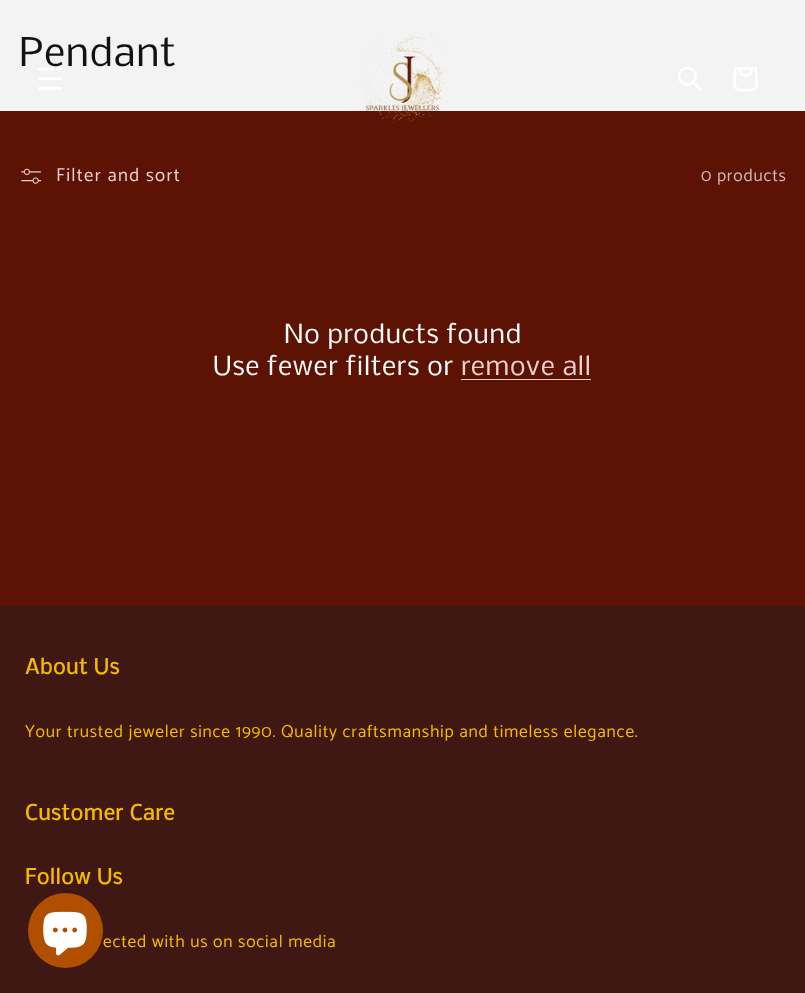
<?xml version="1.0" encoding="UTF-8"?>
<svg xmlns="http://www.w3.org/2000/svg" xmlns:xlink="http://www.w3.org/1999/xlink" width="805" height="993">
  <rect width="100%" height="100%" fill="#5c1304" />
  <rect width="805" height="111" fill="#f3f3f3" />
  <image x="38" y="67" width="24" height="23" xlink:href="image1.png" />
  <image x="359" y="33" width="88" height="90" xlink:href="image2.png" />
  <image x="678" y="67" width="24" height="24" xlink:href="image3.png" />
  <image x="733" y="67" width="25" height="25" xlink:href="image4.png" />
  <image x="21" y="168" width="21" height="16" xlink:href="image5.png" />
  <rect x="461" y="379" width="130" height="1" fill="#e7d0cd" />
  <rect y="606" width="805" height="387" fill="#3f1814" />
  <circle cx="65.5" cy="930.5" r="37.5" fill="#b14f00" />
  <image x="43" y="911" width="44" height="45" xlink:href="image6.png" />
  <text x="19" y="66" style="font-family: Nobile; font-size: 37.5px; letter-spacing: 0.75px; fill: #121212">Pendant</text>
  <text x="56" y="181" style="font-family: Catamaran; font-size: 18.75px; letter-spacing: 1.25px; fill: #e7d0cd">Filter and sort</text>
  <text x="701" y="181" style="font-family: Catamaran; font-size: 17.5px; letter-spacing: 0.75px; fill: #ceb8b4">0 products</text>
  <text x="284" y="343" style="font-family: Nobile; font-size: 25px; letter-spacing: 0.75px; fill: #ffffff">No products found</text>
  <text x="213" y="375" style="font-family: Nobile; font-size: 25px; letter-spacing: 0.75px; fill: #ffffff">Use fewer filters or</text>
  <text x="461" y="375" style="font-family: Nobile; font-size: 25px; letter-spacing: 0.75px; fill: #e7d0cd">remove all</text>
  <text x="25" y="674" style="font-family: Nobile; font-size: 20px; font-weight: bold; letter-spacing: 0.75px; fill: #f4b900">About Us</text>
  <text x="25" y="737" style="font-family: Catamaran; font-size: 17.5px; letter-spacing: 0.75px; fill: #f4b900">Your trusted jeweler since 1990. Quality craftsmanship and timeless elegance.</text>
  <text x="25" y="820" style="font-family: Nobile; font-size: 20px; font-weight: bold; letter-spacing: 0.75px; fill: #f4b900">Customer Care</text>
  <text x="25" y="884" style="font-family: Nobile; font-size: 20px; font-weight: bold; letter-spacing: 0.75px; fill: #f4b900">Follow Us</text>
  <text x="103" y="947" style="font-family: Catamaran; font-size: 17.5px; letter-spacing: 0.75px; fill: #f4b900">ected with us on social media</text>
</svg>
